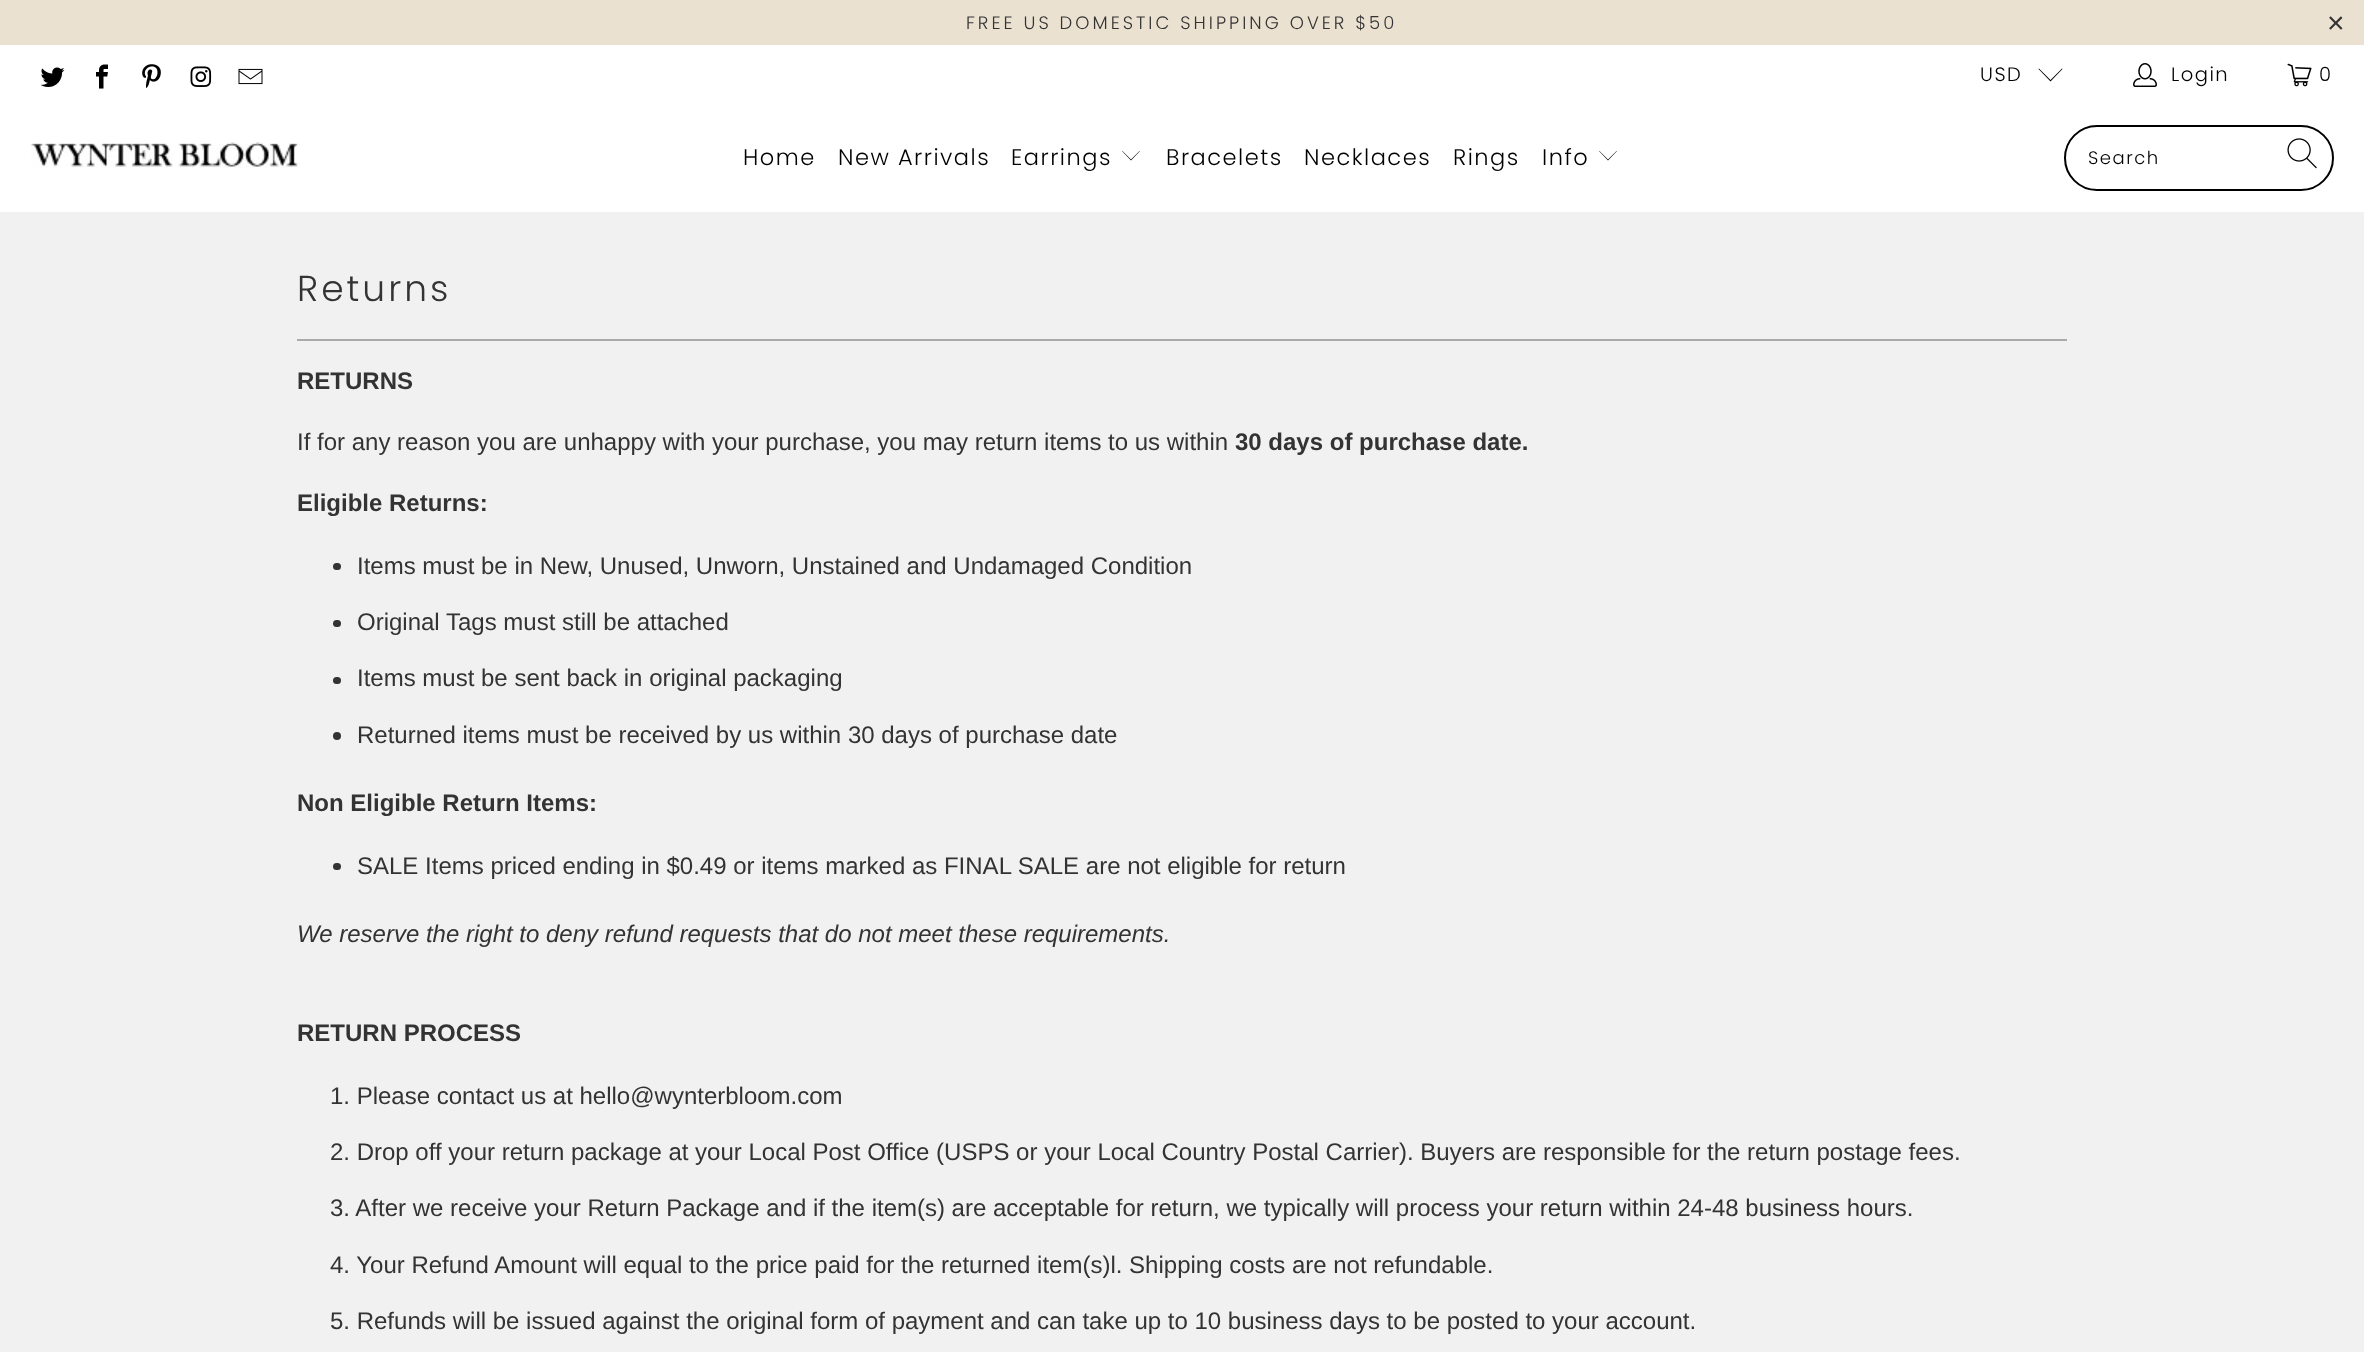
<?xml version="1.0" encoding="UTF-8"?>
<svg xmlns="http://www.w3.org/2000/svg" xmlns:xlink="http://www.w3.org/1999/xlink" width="2364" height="1352">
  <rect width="100%" height="100%" fill="#f1f1f1" />
  <rect width="2364" height="45" fill="#eae1d1" />
  <rect y="45" width="2364" height="167" fill="#ffffff" />
  <image x="40" y="67" width="25" height="20" xlink:href="image1.png" />
  <image x="96" y="64" width="12" height="25" xlink:href="image2.png" />
  <image x="142" y="64" width="19" height="25" xlink:href="image3.png" />
  <image x="190" y="66" width="22" height="21" xlink:href="image4.png" />
  <image x="238" y="68" width="25" height="17" xlink:href="image5.png" />
  <path d="M 2050.5 81.5 l -12 -12.5 l 0.5 -0.5 l 11.5 11.5 l 11.5 -11.5 l 0.5 0.5 z" fill="#000000" />
  <image x="2133" y="63" width="24" height="24" xlink:href="image6.png" />
  <image x="2287" y="63" width="25" height="24" xlink:href="image7.png" />
  <image x="31" y="141" width="269" height="27" xlink:href="image8.png" />
  <path d="M 1131 160.5 l -9 -9.5 h 0.5 l 8.5 8.5 l 8.5 -8.5 h 0.5 z" fill="#000000" />
  <path d="M 1608 160.5 l -9 -9.5 h 0.5 l 8.5 8.5 l 8.5 -8.5 h 0.5 z" fill="#000000" />
  <rect x="2065" y="126" width="268" height="64" rx="32" fill="none" stroke="#000000" stroke-width="2" />
  <image x="2287" y="138" width="30" height="31" xlink:href="image9.png" />
  <rect x="297" y="339" width="1770" height="2" fill="#aaaaaa" />
  <rect x="333" y="563" width="8" height="7" rx="3.5" fill="#333333" />
  <rect x="333" y="620" width="8" height="7" rx="3.5" fill="#333333" />
  <rect x="333" y="677" width="8" height="7" rx="3.5" fill="#333333" />
  <circle cx="337" cy="736" r="4" fill="#333333" />
  <rect x="333" y="863" width="8" height="7" rx="3.5" fill="#333333" />
  <text x="966" y="29" style="font-family: Poppins; font-size: 18px; font-weight: 300; letter-spacing: 3px; fill: #333333">FREE US DOMESTIC SHIPPING OVER $50</text>
  <text x="2327" y="33" style="font-family: Liberation Sans; font-size: 30px; letter-spacing: 3px; fill: #333333">×</text>
  <text x="1980" y="81" style="font-family: Poppins; font-size: 19.5px; font-weight: 300; letter-spacing: 1.5px; fill: #000000">USD</text>
  <text x="2171" y="81" style="font-family: Poppins; font-size: 19.5px; font-weight: 300; letter-spacing: 1.5px; fill: #000000">Login</text>
  <text x="2319" y="81" style="font-family: Poppins; font-size: 19.5px; font-weight: 300; letter-spacing: 1.5px; fill: #000000">0</text>
  <text x="743" y="165" style="font-family: Poppins; font-size: 22.5px; font-weight: 300; letter-spacing: 1.5px; fill: #000000">Home</text>
  <text x="838" y="165" style="font-family: Poppins; font-size: 22.5px; font-weight: 300; letter-spacing: 1.5px; fill: #000000">New Arrivals</text>
  <text x="1011" y="165" style="font-family: Poppins; font-size: 22.5px; font-weight: 300; letter-spacing: 1.5px; fill: #000000">Earrings</text>
  <text x="1166" y="165" style="font-family: Poppins; font-size: 22.5px; font-weight: 300; letter-spacing: 1.5px; fill: #000000">Bracelets</text>
  <text x="1304" y="165" style="font-family: Poppins; font-size: 22.5px; font-weight: 300; letter-spacing: 1.5px; fill: #000000">Necklaces</text>
  <text x="1453" y="165" style="font-family: Poppins; font-size: 22.5px; font-weight: 300; letter-spacing: 1.5px; fill: #000000">Rings</text>
  <text x="1542" y="165" style="font-family: Poppins; font-size: 22.5px; font-weight: 300; letter-spacing: 1.5px; fill: #000000">Info</text>
  <text x="2088" y="164" style="font-family: Poppins; font-size: 18px; font-weight: 300; letter-spacing: 1.5px; fill: #000000">Search</text>
  <text x="297" y="301" style="font-family: Poppins; font-size: 36px; font-weight: 300; letter-spacing: 3px; fill: #333333">Returns</text>
  <text x="297" y="389" style="font-family: Liberation Sans; font-size: 24px; font-weight: bold; fill: #333333">RETURNS</text>
  <text x="297" y="450" style="font-family: Liberation Sans; font-size: 24px; fill: #333333">If for any reason you are unhappy with your purchase, you may return items to us within</text>
  <text x="1235" y="450" style="font-family: Liberation Sans; font-size: 24px; font-weight: bold; fill: #333333">30 days of purchase date.</text>
  <text x="297" y="511" style="font-family: Liberation Sans; font-size: 24px; font-weight: bold; fill: #333333">Eligible Returns:</text>
  <text x="357" y="574" style="font-family: Liberation Sans; font-size: 24px; fill: #333333">Items must be in New, Unused, Unworn, Unstained and Undamaged Condition</text>
  <text x="357" y="630" style="font-family: Liberation Sans; font-size: 24px; fill: #333333">Original Tags must still be attached</text>
  <text x="357" y="686" style="font-family: Liberation Sans; font-size: 24px; fill: #333333">Items must be sent back in original packaging</text>
  <text x="357" y="743" style="font-family: Liberation Sans; font-size: 24px; fill: #333333">Returned items must be received by us within 30 days of purchase date</text>
  <text x="297" y="811" style="font-family: Liberation Sans; font-size: 24px; font-weight: bold; fill: #333333">Non Eligible Return Items:</text>
  <text x="357" y="874" style="font-family: Liberation Sans; font-size: 24px; fill: #333333">SALE Items priced ending in $0.49 or items marked as FINAL SALE are not eligible for return</text>
  <text x="297" y="942" style="font-family: Liberation Sans; font-size: 24px; font-style: italic; fill: #333333">We reserve the right to deny refund requests that do not meet these requirements.</text>
  <text x="297" y="1041" style="font-family: Liberation Sans; font-size: 24px; font-weight: bold; fill: #333333">RETURN PROCESS</text>
  <text x="330" y="1104" style="font-family: Liberation Sans; font-size: 24px; fill: #333333">1. Please contact us at hello@wynterbloom.com</text>
  <text x="330" y="1160" style="font-family: Liberation Sans; font-size: 24px; fill: #333333">2. Drop off your return package at your Local Post Office (USPS or your Local Country Postal Carrier). Buyers are responsible for the return postage fees.</text>
  <text x="330" y="1216" style="font-family: Liberation Sans; font-size: 24px; fill: #333333">3. After we receive your Return Package and if the item(s) are acceptable for return, we typically will process your return within 24-48 business hours.</text>
  <text x="330" y="1273" style="font-family: Liberation Sans; font-size: 24px; fill: #333333">4. Your Refund Amount will equal to the price paid for the returned item(s)l. Shipping costs are not refundable.</text>
  <text x="330" y="1329" style="font-family: Liberation Sans; font-size: 24px; fill: #333333">5. Refunds will be issued against the original form of payment and can take up to 10 business days to be posted to your account.</text>
</svg>
